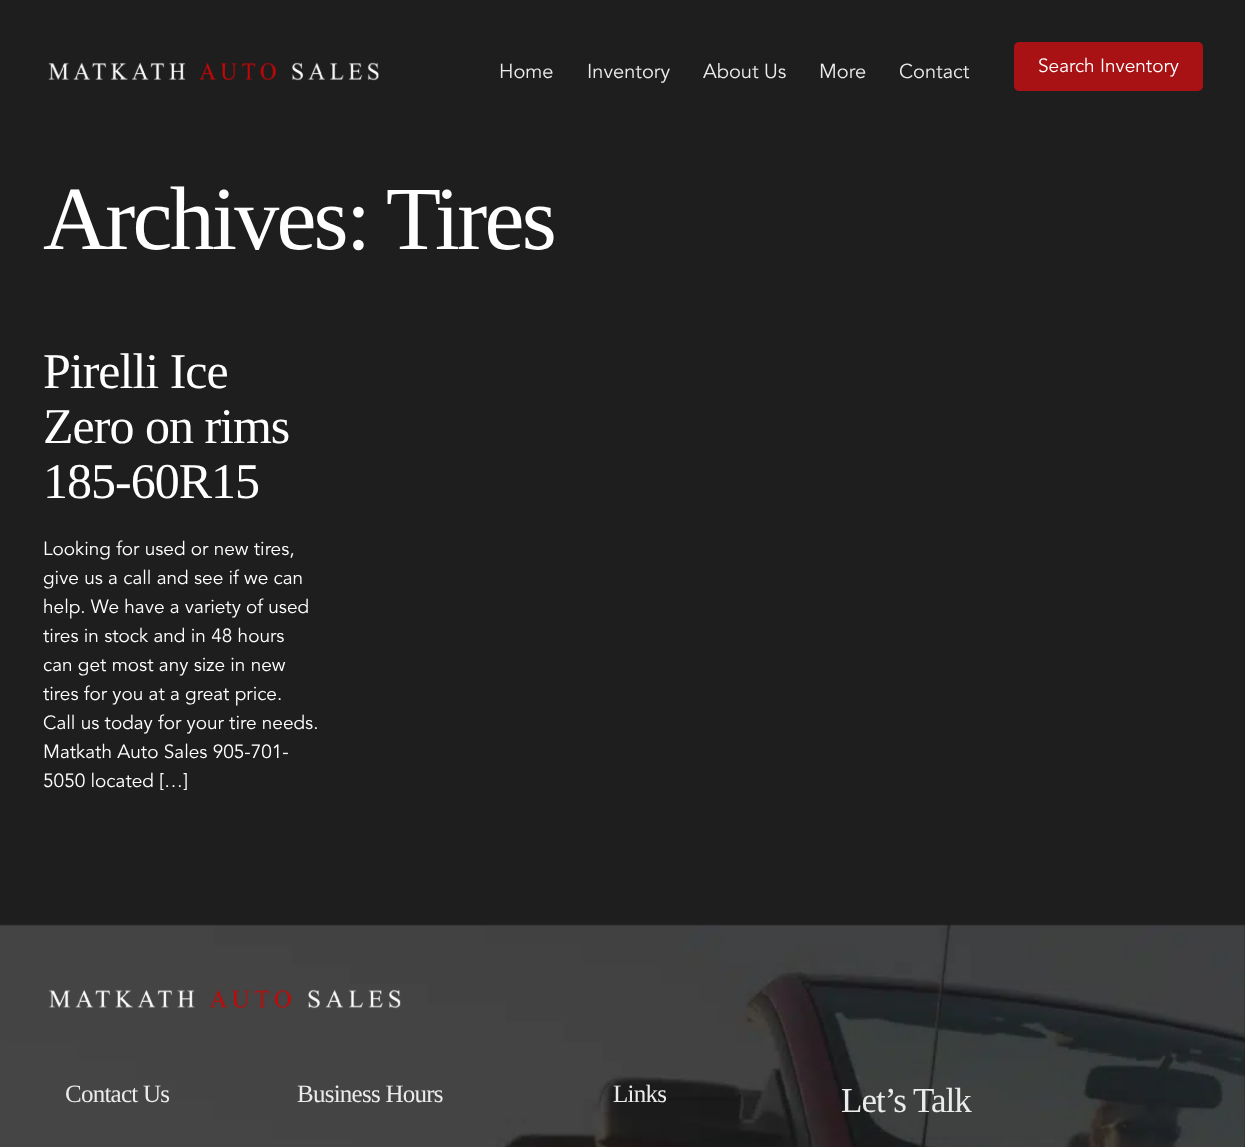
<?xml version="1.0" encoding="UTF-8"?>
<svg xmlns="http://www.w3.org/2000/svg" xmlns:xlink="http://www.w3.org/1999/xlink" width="1245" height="1147">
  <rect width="100%" height="100%" fill="#1e1e1e" />
  <image x="48" y="62" width="331" height="19" xlink:href="image1.png" />
  <rect x="1014" y="42" width="189" height="49" rx="5" fill="#a81215" />
  <image x="0" y="924" width="1245" height="223" xlink:href="image2.png" />
  <image x="48" y="989" width="353" height="20" xlink:href="image3.png" />
  <text x="499" y="78" style="font-family: Avenir; font-size: 20px; fill: #ebebeb">Home</text>
  <text x="587" y="78" style="font-family: Avenir; font-size: 20px; fill: #ebebeb">Inventory</text>
  <text x="703" y="78" style="font-family: Avenir; font-size: 20px; fill: #ebebeb">About Us</text>
  <text x="819" y="78" style="font-family: Avenir; font-size: 20px; fill: #ebebeb">More</text>
  <text x="899" y="78" style="font-family: Avenir; font-size: 20px; fill: #ebebeb">Contact</text>
  <text x="1038" y="72" style="font-family: Avenir; font-size: 19px; fill: #ffffff">Search Inventory</text>
  <text x="43" y="249" style="font-family: Liberation Serif; font-size: 90px; letter-spacing: -2.75px; fill: #ffffff">Archives:</text>
  <text x="386" y="249" style="font-family: Liberation Serif; font-size: 90px; letter-spacing: -2.75px; fill: #ffffff">Tires</text>
  <text x="43" y="388" style="font-family: Liberation Serif; font-size: 50px; letter-spacing: -1px; fill: #ffffff">Pirelli Ice</text>
  <text x="43" y="443" style="font-family: Liberation Serif; font-size: 50px; letter-spacing: -1px; fill: #ffffff">Zero on rims</text>
  <text x="43" y="498" style="font-family: Liberation Serif; font-size: 50px; letter-spacing: -1px; fill: #ffffff">185-60R15</text>
  <text x="43" y="555" style="font-family: Avenir; font-size: 19px; fill: #ffffff">Looking for used or new tires,</text>
  <text x="43" y="584" style="font-family: Avenir; font-size: 19px; fill: #ffffff">give us a call and see if we can</text>
  <text x="43" y="613" style="font-family: Avenir; font-size: 19px; fill: #ffffff">help. We have a variety of used</text>
  <text x="43" y="642" style="font-family: Avenir; font-size: 19px; fill: #ffffff">tires in stock and in 48 hours</text>
  <text x="43" y="671" style="font-family: Avenir; font-size: 19px; fill: #ffffff">can get most any size in new</text>
  <text x="43" y="700" style="font-family: Avenir; font-size: 19px; fill: #ffffff">tires for you at a great price.</text>
  <text x="43" y="729" style="font-family: Avenir; font-size: 19px; fill: #ffffff">Call us today for your tire needs.</text>
  <text x="43" y="758" style="font-family: Avenir; font-size: 19px; fill: #ffffff">Matkath Auto Sales 905-701-</text>
  <text x="43" y="787" style="font-family: Avenir; font-size: 19px; fill: #ffffff">5050 located […]</text>
  <text x="65" y="1102" style="font-family: Liberation Serif; font-size: 25px; letter-spacing: -0.75px; fill: #ebebeb">Contact Us</text>
  <text x="297" y="1102" style="font-family: Liberation Serif; font-size: 25px; letter-spacing: -0.75px; fill: #ebebeb">Business Hours</text>
  <text x="613" y="1102" style="font-family: Liberation Serif; font-size: 25px; letter-spacing: -0.75px; fill: #ebebeb">Links</text>
  <text x="841" y="1112" style="font-family: Liberation Serif; font-size: 35px; letter-spacing: -1px; fill: #ebebeb">Let’s Talk</text>
</svg>
